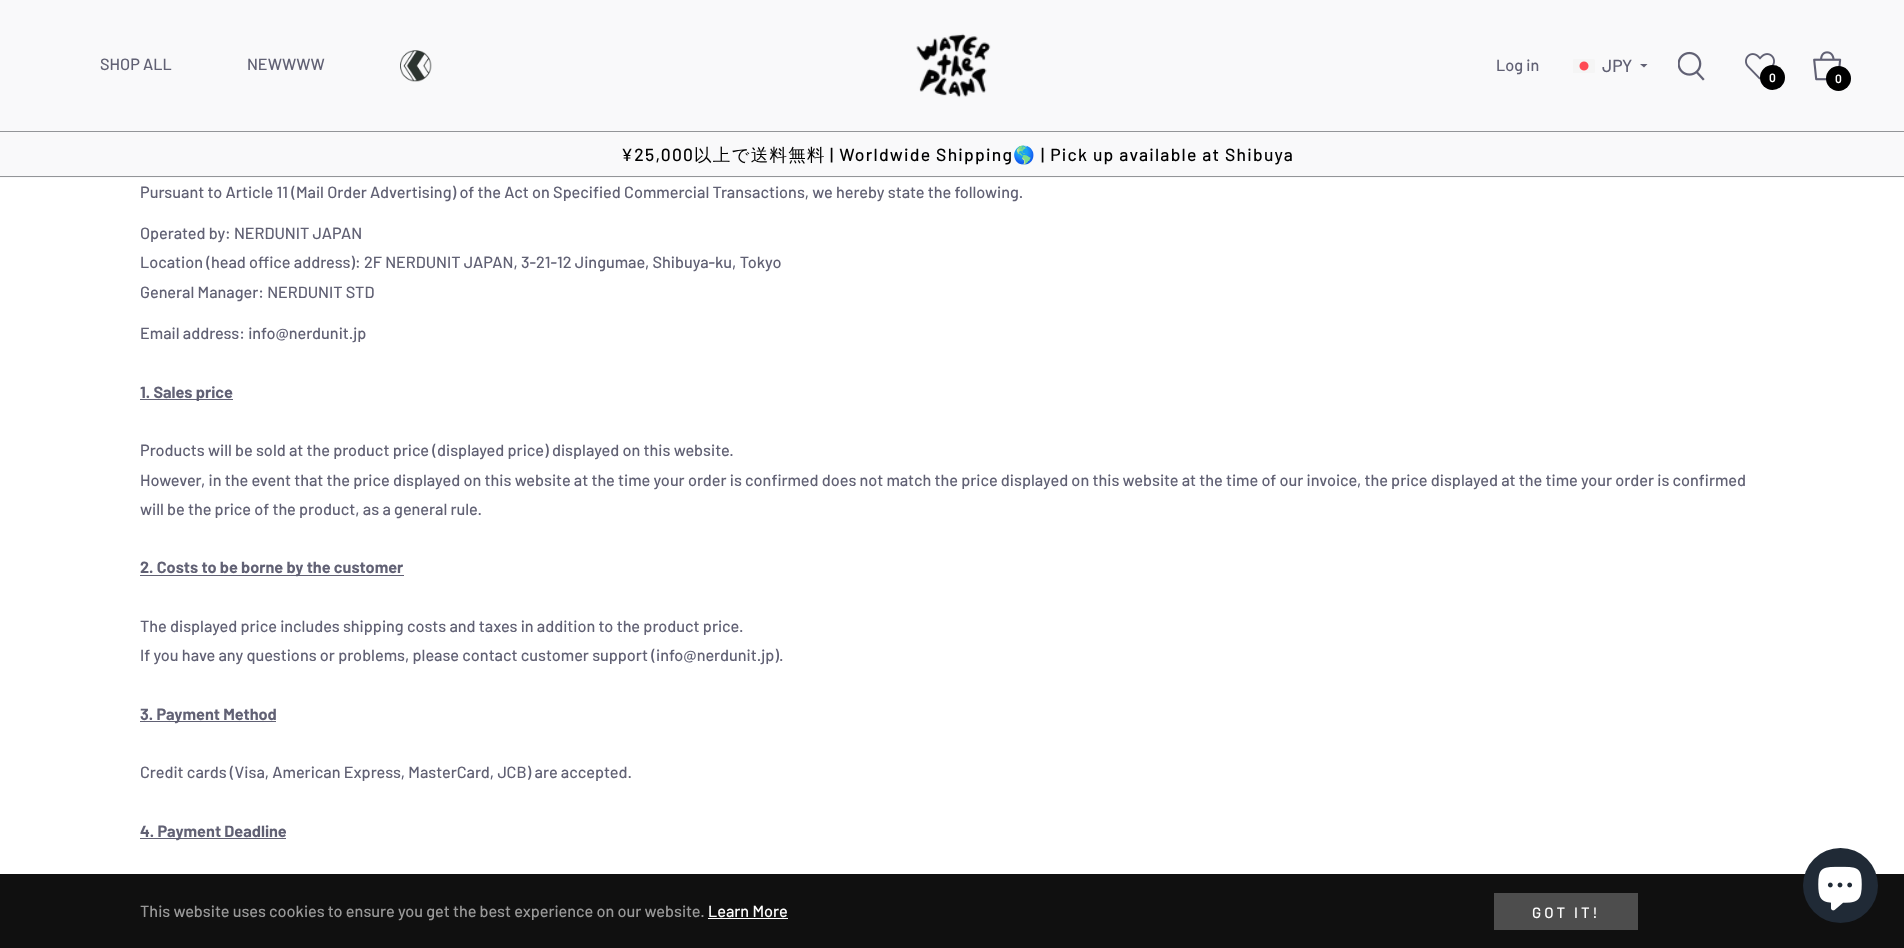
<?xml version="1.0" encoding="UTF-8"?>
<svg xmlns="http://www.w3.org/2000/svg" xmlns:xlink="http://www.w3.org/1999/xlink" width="1904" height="948">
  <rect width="100%" height="100%" fill="#ffffff" />
  <rect width="1904" height="178" fill="#f9f9fa" />
  <rect y="131" width="1904" height="1" fill="#939598" />
  <image x="400" y="50" width="32" height="32" xlink:href="image1.png" />
  <image x="916" y="33" width="75" height="65" xlink:href="image2.png" />
  <image x="1573" y="59" width="22" height="14" xlink:href="image3.png" />
  <path d="M 1640 64 h 7.5 l -3.5 3.5 z" fill="#616174" />
  <image x="1678" y="51" width="27" height="30" xlink:href="image4.png" />
  <image x="1745" y="53" width="30" height="27" xlink:href="image5.png" />
  <circle cx="1772.5" cy="77.5" r="12.5" fill="#000000" />
  <image x="1813" y="51" width="29" height="30" xlink:href="image6.png" />
  <circle cx="1838.5" cy="78.5" r="12.5" fill="#000000" />
  <rect y="176" width="1904" height="1" fill="#939598" />
  <rect x="140" y="399" width="93" height="1" fill="#616174" />
  <rect x="140" y="575" width="264" height="1" fill="#616174" />
  <rect x="140" y="721" width="136" height="1" fill="#616174" />
  <rect x="140" y="838" width="146" height="1" fill="#616174" />
  <rect y="874" width="1904" height="74" fill="#101010" />
  <rect x="708" y="918" width="80" height="1" fill="#ffffff" />
  <rect x="1494" y="893" width="144" height="37" fill="#4d4d4d" />
  <circle cx="1840.5" cy="885.5" r="37.5" fill="#202a36" />
  <image x="1818" y="866" width="44" height="45" xlink:href="image7.png" />
  <text x="100" y="70" style="font-family: Barlow; font-size: 16.25px; font-weight: 500; fill: #616174">SHOP ALL</text>
  <text x="247" y="70" style="font-family: Barlow; font-size: 16.25px; font-weight: 500; fill: #616174">NEWWWW</text>
  <text x="1496" y="71" style="font-family: Barlow; font-size: 16.25px; font-weight: 500; fill: #616174">Log in</text>
  <text x="1602" y="72" style="font-family: Barlow; font-size: 17.5px; font-weight: 500; fill: #616174">JPY</text>
  <text x="1769" y="82" style="font-family: Barlow; font-size: 12px; font-weight: 600; fill: #ffffff">0</text>
  <text x="1835" y="83" style="font-family: Barlow; font-size: 12px; font-weight: 600; fill: #ffffff">0</text>
  <text x="621" y="161" style="font-family: Barlow; font-size: 17.5px; font-weight: 500; letter-spacing: 1.25px; fill: #000000">¥25,000</text>
  <text x="694" y="161" style="font-family: WenQuanYi Zen Hei; font-size: 17.5px; font-weight: 500; letter-spacing: 1.25px; fill: #000000">以上で送料無料</text>
  <text x="830" y="161" style="font-family: Barlow; font-size: 17.5px; font-weight: 500; letter-spacing: 1.25px; fill: #000000">| Worldwide Shipping</text>
  <text x="1013" y="161" style="font-family: Noto Color Emoji; font-size: 17.5px; letter-spacing: 1.25px; fill: #000000">🌎</text>
  <text x="1041" y="161" style="font-family: Barlow; font-size: 17.5px; font-weight: 500; letter-spacing: 1.25px; fill: #000000">| Pick up available at Shibuya</text>
  <text x="140" y="198" style="font-family: Barlow; font-size: 16.25px; font-weight: 500; fill: #616174">Pursuant to Article 11 (Mail Order Advertising) of the Act on Specified Commercial Transactions, we hereby state the following.</text>
  <text x="140" y="239" style="font-family: Barlow; font-size: 16.25px; font-weight: 500; fill: #616174">Operated by: NERDUNIT JAPAN</text>
  <text x="140" y="268" style="font-family: Barlow; font-size: 16.25px; font-weight: 500; fill: #616174">Location (head office address): 2F NERDUNIT JAPAN, 3-21-12 Jingumae, Shibuya-ku, Tokyo</text>
  <text x="140" y="298" style="font-family: Barlow; font-size: 16.25px; font-weight: 500; fill: #616174">General Manager: NERDUNIT STD</text>
  <text x="140" y="339" style="font-family: Barlow; font-size: 16.25px; font-weight: 500; fill: #616174">Email address: info@nerdunit.jp</text>
  <text x="140" y="398" style="font-family: Barlow; font-size: 16.25px; font-weight: bold; fill: #616174">1. Sales price</text>
  <text x="140" y="456" style="font-family: Barlow; font-size: 16.25px; font-weight: 500; fill: #616174">Products will be sold at the product price (displayed price) displayed on this website.</text>
  <text x="140" y="486" style="font-family: Barlow; font-size: 16.25px; font-weight: 500; fill: #616174">However, in the event that the price displayed on this website at the time your order is confirmed does not match the price displayed on this website at the time of our invoice, the price displayed at the time your order is confirmed</text>
  <text x="140" y="515" style="font-family: Barlow; font-size: 16.25px; font-weight: 500; fill: #616174">will be the price of the product, as a general rule.</text>
  <text x="140" y="573" style="font-family: Barlow; font-size: 16.25px; font-weight: bold; fill: #616174">2. Costs to be borne by the customer</text>
  <text x="140" y="632" style="font-family: Barlow; font-size: 16.25px; font-weight: 500; fill: #616174">The displayed price includes shipping costs and taxes in addition to the product price.</text>
  <text x="140" y="661" style="font-family: Barlow; font-size: 16.25px; font-weight: 500; fill: #616174">If you have any questions or problems, please contact customer support (info@nerdunit.jp).</text>
  <text x="140" y="720" style="font-family: Barlow; font-size: 16.25px; font-weight: bold; fill: #616174">3. Payment Method</text>
  <text x="140" y="778" style="font-family: Barlow; font-size: 16.25px; font-weight: 500; fill: #616174">Credit cards (Visa, American Express, MasterCard, JCB) are accepted.</text>
  <text x="140" y="837" style="font-family: Barlow; font-size: 16.25px; font-weight: bold; fill: #616174">4. Payment Deadline</text>
  <text x="140" y="917" style="font-family: Barlow; font-size: 16.25px; font-weight: 500; fill: #999999">This website uses cookies to ensure you get the best experience on our website.</text>
  <text x="708" y="917" style="font-family: Barlow; font-size: 16.25px; font-weight: 500; fill: #ffffff">Learn More</text>
  <text x="1532" y="918" style="font-family: Barlow; font-size: 15px; font-weight: 500; letter-spacing: 3px; fill: #ffffff">GOT IT!</text>
</svg>
